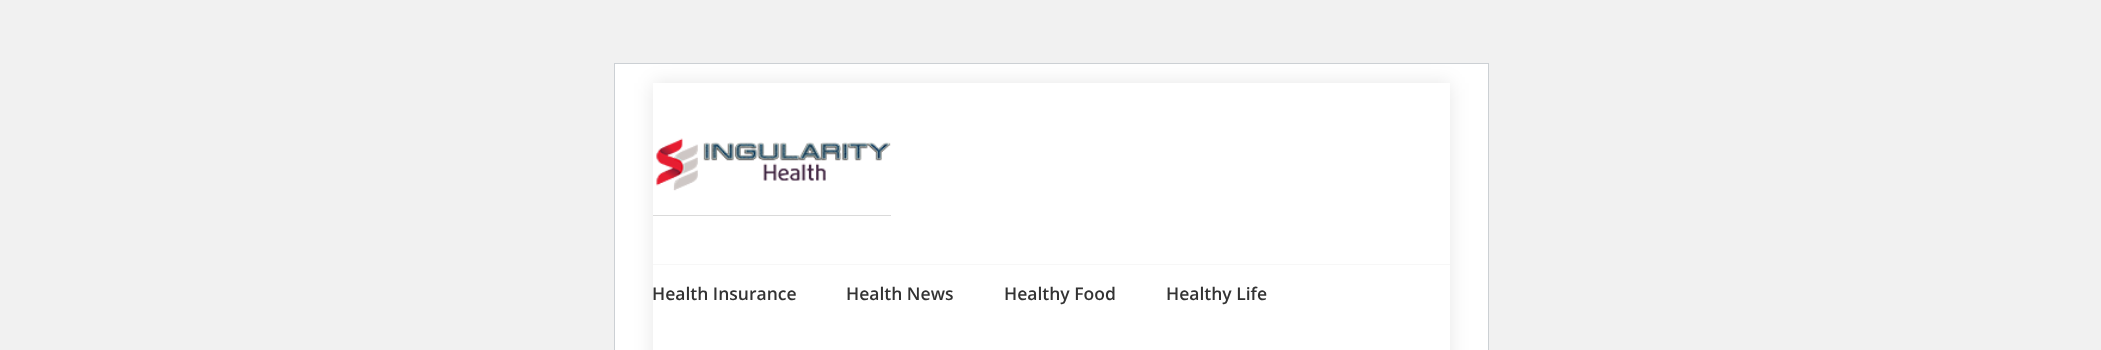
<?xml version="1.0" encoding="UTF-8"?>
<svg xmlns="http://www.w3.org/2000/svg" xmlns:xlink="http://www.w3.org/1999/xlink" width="2101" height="350">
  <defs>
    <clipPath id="clip1"><path d="M 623 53 h 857 v 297 h -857 z m 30 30 h 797 v 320 h -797 z" clip-rule="evenodd" /></clipPath>
  </defs>
  <rect width="100%" height="100%" fill="#f1f1f1" />
  <rect x="614.5" y="63.5" width="874" height="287" fill="#ffffff" stroke="#ccd0d4" />
  <g clip-path="url(#clip1)">
    <rect x="653" y="83" width="797" height="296" fill="#000000" fill-opacity="0.1" filter="blur(9.5px)" />
  </g>
  <rect x="653" y="215" width="238" height="1" fill="#dadada" />
  <image x="656" y="138" width="235" height="53" xlink:href="image1.png" />
  <rect x="653" y="264" width="797" height="1" fill="#f7f7f7" />
  <text x="652" y="300" style="font-family: Open Sans; font-size: 17.5px; font-weight: 600; fill: #333333">Health Insurance</text>
  <text x="846" y="300" style="font-family: Open Sans; font-size: 17.5px; font-weight: 600; fill: #333333">Health News</text>
  <text x="1004" y="300" style="font-family: Open Sans; font-size: 17.5px; font-weight: 600; fill: #333333">Healthy Food</text>
  <text x="1166" y="300" style="font-family: Open Sans; font-size: 17.5px; font-weight: 600; fill: #333333">Healthy Life</text>
</svg>
